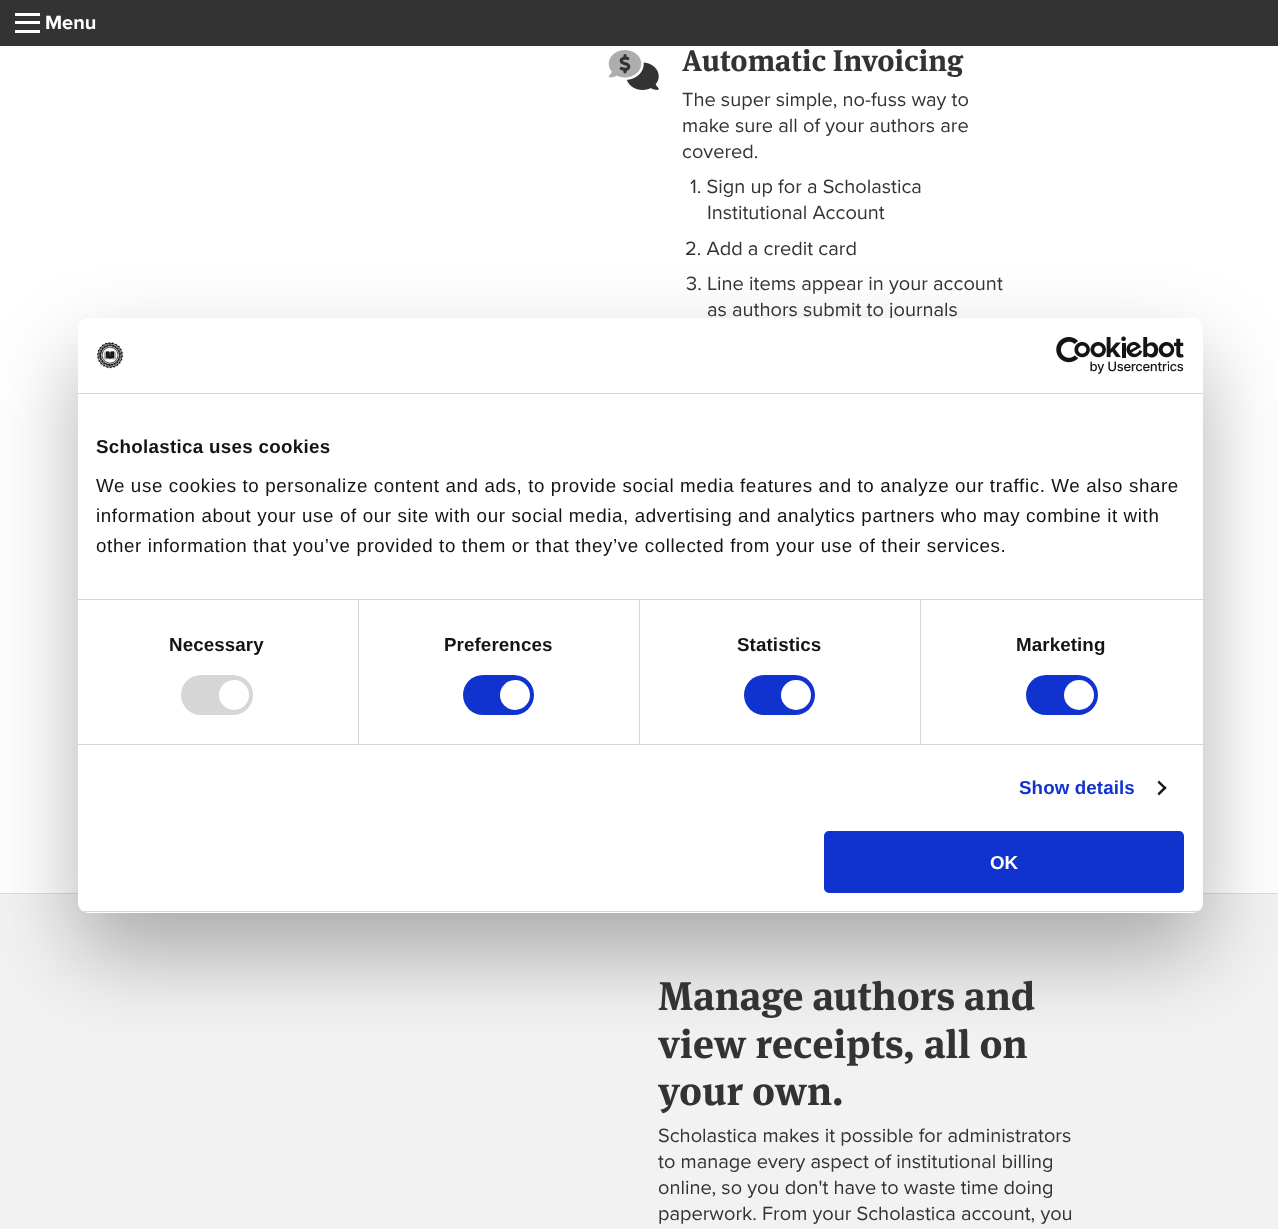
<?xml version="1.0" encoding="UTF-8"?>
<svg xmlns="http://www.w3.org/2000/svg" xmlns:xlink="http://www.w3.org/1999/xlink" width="1278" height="1229">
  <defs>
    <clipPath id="clip1"><rect x="78" y="318" width="1125" height="595" rx="10" /></clipPath>
  </defs>
  <rect width="100%" height="100%" fill="#ffffff" />
  <rect width="1278" height="46" fill="#333333" />
  <rect x="15" y="30" width="25" height="3" fill="#ffffff" />
  <rect x="15" y="21" width="25" height="3" fill="#ffffff" />
  <rect x="15" y="13" width="25" height="3" fill="#ffffff" />
  <image x="619" y="54" width="40" height="36" xlink:href="image2.png" />
  <image x="608" y="50" width="34" height="28" xlink:href="image1.png" />
  <rect y="894" width="1278" height="335" fill="#f2f2f2" />
  <rect y="893" width="1278" height="1" fill="#dddddd" />
  <rect x="78" y="358" width="1125" height="595" rx="10" fill="#000000" fill-opacity="0.3" filter="blur(42.5px)" />
  <text x="45" y="29" style="font-family: Proxima Nova; font-size: 20px; font-weight: bold; fill: #ffffff">Menu</text>
  <text x="682" y="71" style="font-family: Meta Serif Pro; font-size: 30px; font-weight: bold; fill: #333333">Automatic Invoicing</text>
  <text x="682" y="106" style="font-family: Proxima Nova; font-size: 20px; fill: #333333">The super simple, no-fuss way to</text>
  <text x="682" y="132" style="font-family: Proxima Nova; font-size: 20px; fill: #333333">make sure all of your authors are</text>
  <text x="682" y="158" style="font-family: Proxima Nova; font-size: 20px; fill: #333333">covered.</text>
  <text x="690" y="193" style="font-family: Proxima Nova; font-size: 20px; fill: #333333">1. Sign up for a Scholastica</text>
  <text x="707" y="219" style="font-family: Proxima Nova; font-size: 20px; fill: #333333">Institutional Account</text>
  <text x="685" y="255" style="font-family: Proxima Nova; font-size: 20px; fill: #333333">2. Add a credit card</text>
  <text x="686" y="290" style="font-family: Proxima Nova; font-size: 20px; fill: #333333">3. Line items appear in your account</text>
  <text x="707" y="316" style="font-family: Proxima Nova; font-size: 20px; fill: #333333">as authors submit to journals</text>
  <text x="658" y="1010" style="font-family: Meta Serif Pro; font-size: 40px; font-weight: bold; fill: #333333">Manage authors and</text>
  <text x="658" y="1058" style="font-family: Meta Serif Pro; font-size: 40px; font-weight: bold; fill: #333333">view receipts, all on</text>
  <text x="658" y="1105" style="font-family: Meta Serif Pro; font-size: 40px; font-weight: bold; fill: #333333">your own.</text>
  <text x="658" y="1142" style="font-family: Proxima Nova; font-size: 20px; fill: #333333">Scholastica makes it possible for administrators</text>
  <text x="658" y="1168" style="font-family: Proxima Nova; font-size: 20px; fill: #333333">to manage every aspect of institutional billing</text>
  <text x="658" y="1194" style="font-family: Proxima Nova; font-size: 20px; fill: #333333">online, so you don't have to waste time doing</text>
  <text x="658" y="1220" style="font-family: Proxima Nova; font-size: 20px; fill: #333333">paperwork. From your Scholastica account, you</text>
  <rect x="78" y="318" width="1125" height="595" rx="10" fill="#ffffff" />
  <rect x="78" y="393" width="1125" height="1" fill="#d6d6d6" />
  <image x="97" y="342" width="27" height="27" xlink:href="image3.png" />
  <image x="1056" y="336" width="128" height="38" xlink:href="image4.png" />
  <rect x="78" y="599" width="1125" height="1" fill="#d6d6d6" />
  <text x="96" y="453" style="font-family: Liberation Sans; font-size: 18.75px; font-weight: bold; letter-spacing: 0.3px; fill: #141414">Scholastica uses cookies</text>
  <text x="96" y="492" style="font-family: Liberation Sans; font-size: 18.75px; letter-spacing: 0.62px; fill: #141414">We use cookies to personalize content and ads, to provide social media features and to analyze our traffic. We also share</text>
  <text x="96" y="522" style="font-family: Liberation Sans; font-size: 18.75px; letter-spacing: 0.62px; fill: #141414">information about your use of our site with our social media, advertising and analytics partners who may combine it with</text>
  <text x="96" y="552" style="font-family: Liberation Sans; font-size: 18.75px; letter-spacing: 0.62px; fill: #141414">other information that you’ve provided to them or that they’ve collected from your use of their services.</text>
  <rect x="78" y="744" width="1125" height="1" fill="#d6d6d6" />
  <rect x="358" y="600" width="1" height="144" fill="#d6d6d6" />
  <text x="169" y="651" style="font-family: Liberation Sans; font-size: 18.75px; font-weight: bold; letter-spacing: 0.1px; fill: #141414">Necessary</text>
  <rect x="181" y="675" width="72" height="40" rx="20" fill="#d6d6d6" />
  <circle cx="234" cy="695" r="15" fill="#ffffff" />
  <rect x="639" y="600" width="1" height="144" fill="#d6d6d6" />
  <text x="444" y="651" style="font-family: Liberation Sans; font-size: 18.75px; font-weight: bold; letter-spacing: 0.1px; fill: #141414">Preferences</text>
  <rect x="463" y="675" width="71" height="40" rx="20" fill="#1032cf" />
  <circle cx="515" cy="695" r="15" fill="#ffffff" />
  <rect x="920" y="600" width="1" height="144" fill="#d6d6d6" />
  <text x="737" y="651" style="font-family: Liberation Sans; font-size: 18.75px; font-weight: bold; letter-spacing: 0.1px; fill: #141414">Statistics</text>
  <rect x="744" y="675" width="71" height="40" rx="20" fill="#1032cf" />
  <circle cx="796" cy="695" r="15" fill="#ffffff" />
  <text x="1016" y="651" style="font-family: Liberation Sans; font-size: 18.75px; font-weight: bold; letter-spacing: 0.1px; fill: #141414">Marketing</text>
  <rect x="1026" y="675" width="72" height="40" rx="20" fill="#1032cf" />
  <circle cx="1079" cy="695" r="15" fill="#ffffff" />
  <text x="1019" y="794" style="font-family: Liberation Sans; font-size: 18.75px; font-weight: bold; letter-spacing: 0.1px; fill: #1032cf">Show details</text>
  <path d="M 1159 780.5 l 7.5 7.5 l -1.5 1.5 l -7.5 -7 z" fill="#141414" />
  <path d="M 1165 786 l 1.5 2 l -7.5 7.5 l -1.5 -2 z" fill="#141414" />
  <g clip-path="url(#clip1)">
    <rect x="78" y="911" width="1125" height="1" fill="#d6d6d6" />
  </g>
  <rect x="825.5" y="832.5" width="357" height="59" rx="3.5" fill="#1032cf" stroke="#1032cf" stroke-width="3" />
  <text x="990" y="869" style="font-family: Liberation Sans; font-size: 18.75px; font-weight: bold; fill: #ffffff">OK</text>
</svg>
